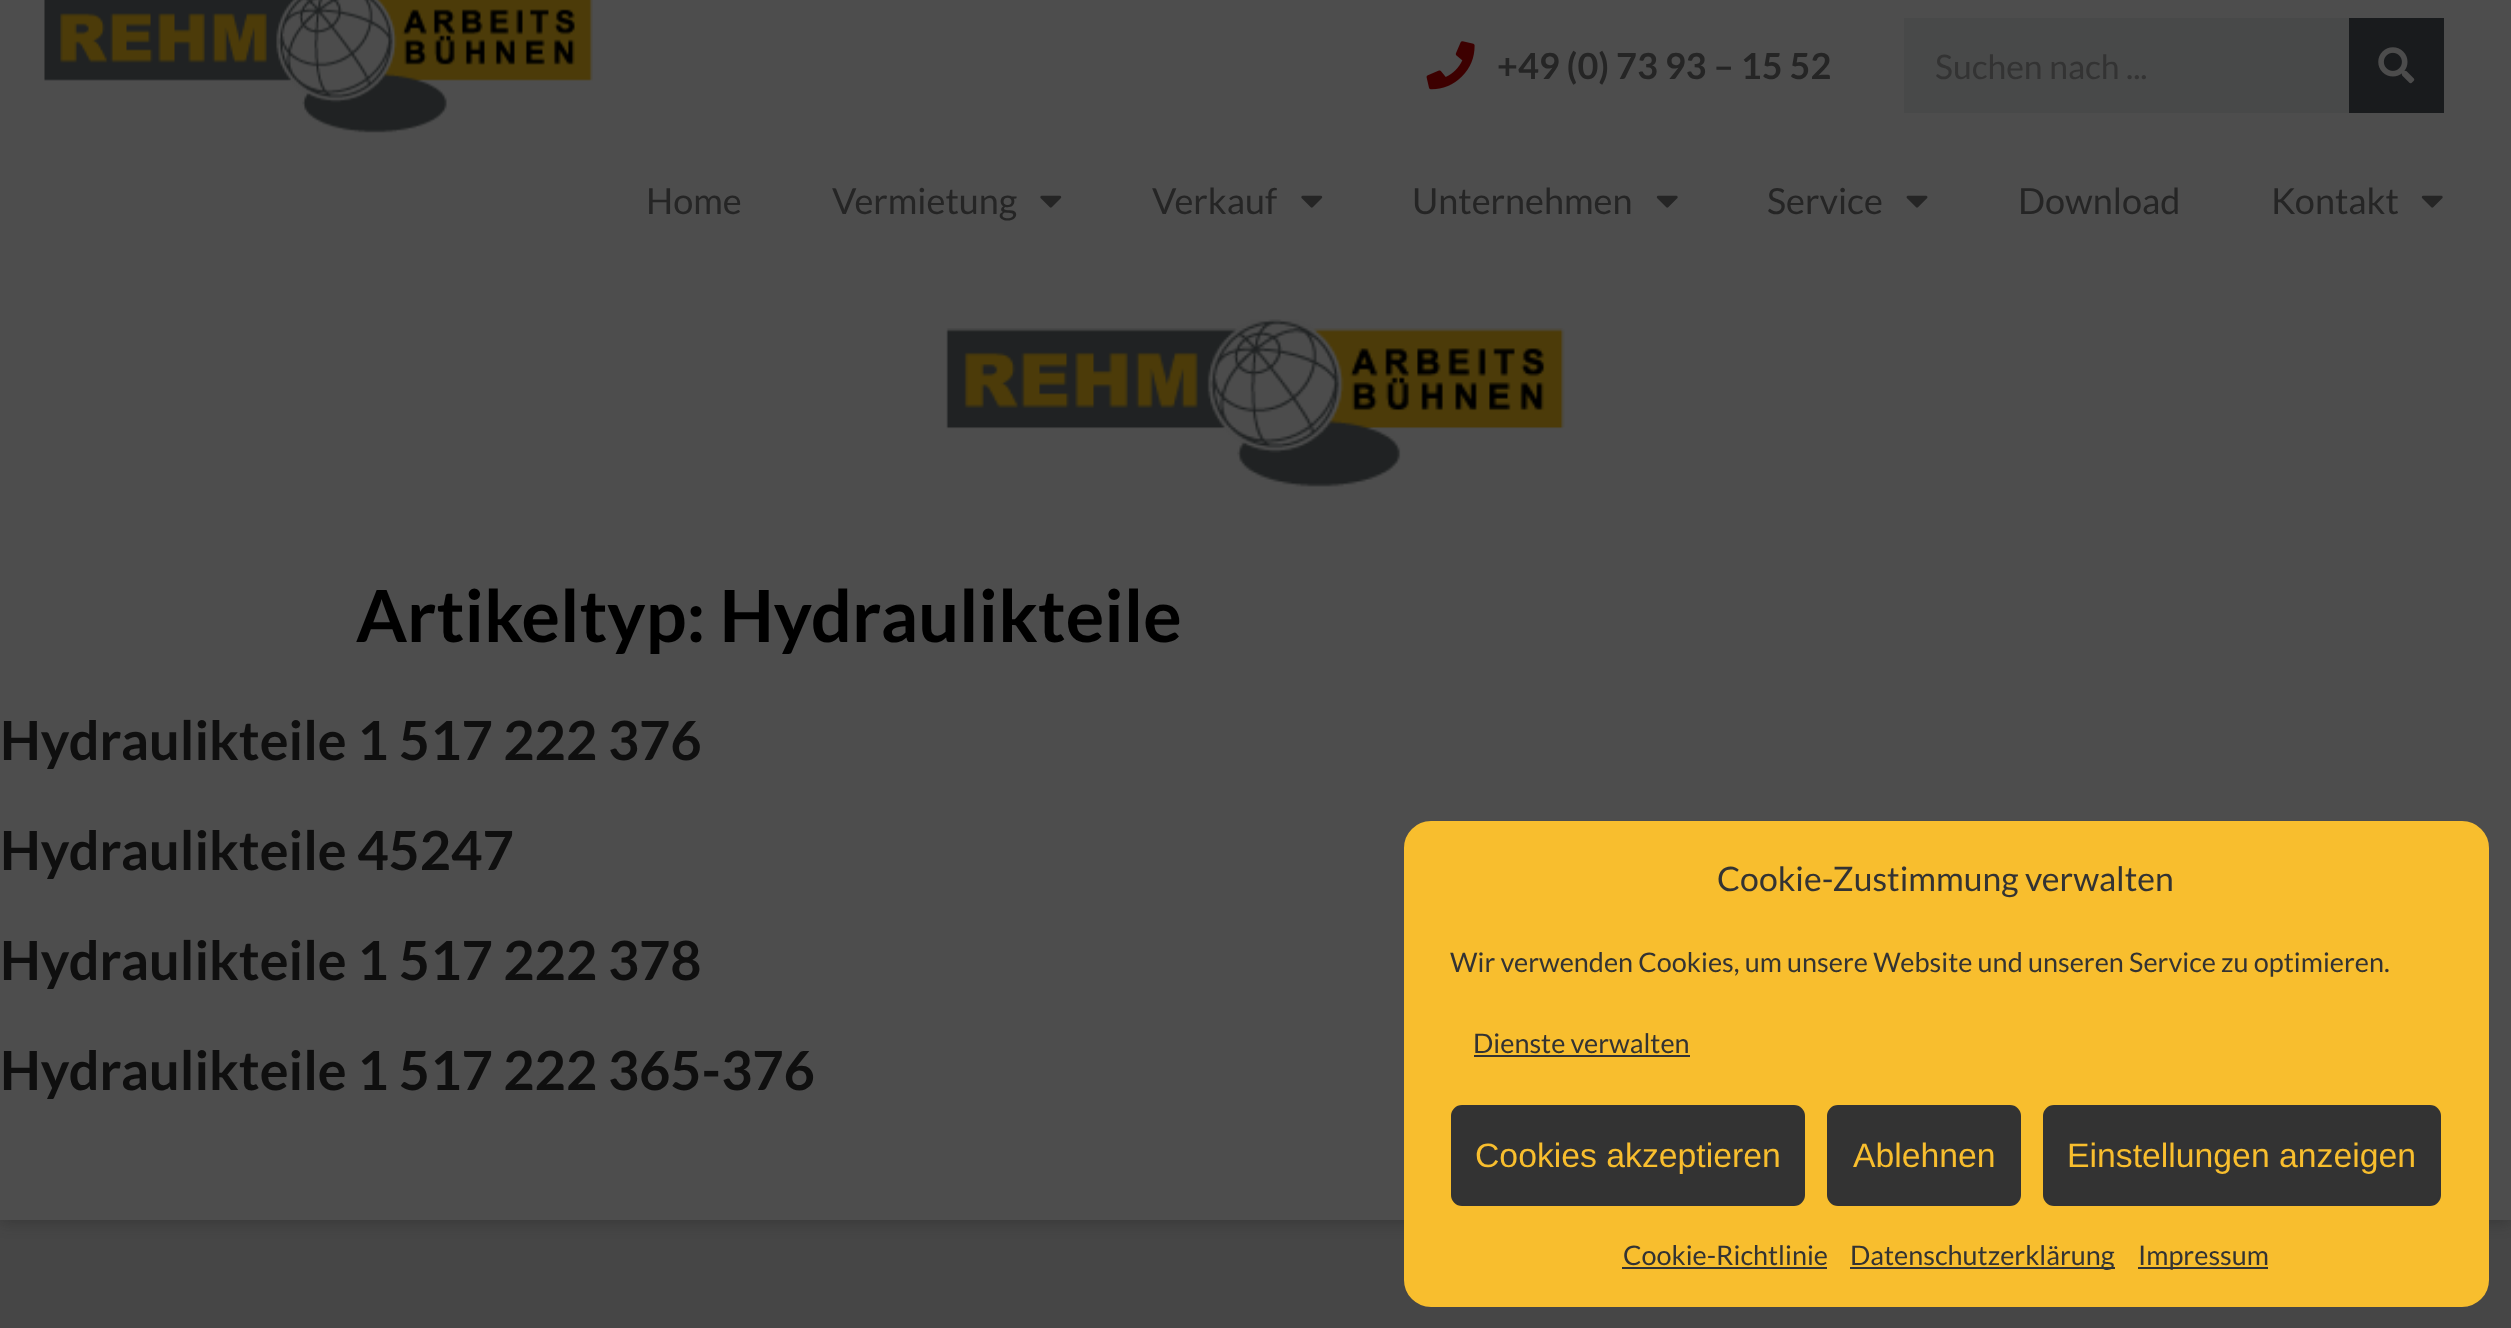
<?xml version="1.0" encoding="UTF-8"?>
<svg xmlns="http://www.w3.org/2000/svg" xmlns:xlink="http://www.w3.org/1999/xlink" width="2511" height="1328">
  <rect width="100%" height="100%" fill="#464646" />
  <rect y="-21" width="2511" height="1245" fill="#1e1e1e" fill-opacity="0.3" filter="blur(7px)" />
  <rect width="2511" height="1220" fill="#4d4d4d" />
  <image x="44" y="0" width="549" height="133" xlink:href="image1.png" />
  <image x="1426" y="41" width="49" height="49" xlink:href="image2.png" />
  <rect x="1904" y="18" width="445" height="95" fill="#484949" />
  <rect x="2349" y="18" width="95" height="95" fill="#191b1d" />
  <image x="2378" y="47" width="37" height="37" xlink:href="image3.png" />
  <image x="1040" y="195" width="22" height="13" xlink:href="image4.png" />
  <image x="1301" y="195" width="22" height="13" xlink:href="image4.png" />
  <image x="1656" y="195" width="22" height="13" xlink:href="image5.png" />
  <image x="1906" y="195" width="22" height="13" xlink:href="image6.png" />
  <image x="2421" y="195" width="22" height="13" xlink:href="image5.png" />
  <image x="946" y="319" width="619" height="168" xlink:href="image7.png" />
  <rect x="1405" y="822" width="1083" height="484" rx="26" fill="#f8be2e" stroke="#f8be2e" stroke-width="2" />
  <rect x="1474" y="1055" width="216" height="2" fill="#333333" />
  <rect x="1452" y="1106" width="352" height="99" rx="10" fill="#333333" stroke="#333333" stroke-width="2" />
  <rect x="1828" y="1106" width="192" height="99" rx="10" fill="#333333" stroke="#333333" stroke-width="2" />
  <rect x="2044" y="1106" width="396" height="99" rx="10" fill="#333333" stroke="#333333" stroke-width="2" />
  <rect x="1622" y="1267" width="205" height="2" fill="#333333" />
  <rect x="1850" y="1267" width="265" height="2" fill="#333333" />
  <rect x="2138" y="1267" width="130" height="2" fill="#333333" />
  <text x="1497" y="79" style="font-family: Lato; font-size: 36px; font-weight: bold; fill: #252525">+49 (0) 73 93 – 15 52</text>
  <text x="1935" y="79" style="font-family: Lato; font-size: 33.75px; fill: #333333">Suchen nach ...</text>
  <text x="646" y="214" style="font-family: Lato; font-size: 36px; fill: #252525">Home</text>
  <text x="832" y="214" style="font-family: Lato; font-size: 36px; fill: #252525">Vermietung</text>
  <text x="1152" y="214" style="font-family: Lato; font-size: 36px; fill: #252525">Verkauf</text>
  <text x="1412" y="214" style="font-family: Lato; font-size: 36px; fill: #252525">Unternehmen</text>
  <text x="1767" y="214" style="font-family: Lato; font-size: 36px; fill: #252525">Service</text>
  <text x="2018" y="214" style="font-family: Lato; font-size: 36px; fill: #252525">Download</text>
  <text x="2271" y="214" style="font-family: Lato; font-size: 36px; fill: #252525">Kontakt</text>
  <text x="356" y="642" style="font-family: Lato; font-size: 72px; font-weight: bold; fill: #000000">Artikeltyp: Hydraulikteile</text>
  <text x="0" y="760" style="font-family: Lato; font-size: 54px; font-weight: bold; fill: #0f0f0f">Hydraulikteile 1 517 222 376</text>
  <text x="0" y="870" style="font-family: Lato; font-size: 54px; font-weight: bold; fill: #0f0f0f">Hydraulikteile 45247</text>
  <text x="0" y="980" style="font-family: Lato; font-size: 54px; font-weight: bold; fill: #0f0f0f">Hydraulikteile 1 517 222 378</text>
  <text x="0" y="1090" style="font-family: Lato; font-size: 54px; font-weight: bold; fill: #0f0f0f">Hydraulikteile 1 517 222 365-376</text>
  <text x="1717" y="891" style="font-family: Lato; font-size: 33.75px; fill: #333333">Cookie-Zustimmung verwalten</text>
  <text x="1450" y="972" style="font-family: Lato; font-size: 27px; fill: #333333">Wir verwenden Cookies, um unsere Website und unseren Service zu optimieren.</text>
  <text x="1473" y="1053" style="font-family: Lato; font-size: 27px; fill: #333333">Dienste verwalten</text>
  <text x="1475" y="1167" style="font-family: Liberation Sans; font-size: 33.75px; fill: #f8be2e">Cookies akzeptieren</text>
  <text x="1853" y="1167" style="font-family: Liberation Sans; font-size: 33.75px; fill: #f8be2e">Ablehnen</text>
  <text x="2067" y="1167" style="font-family: Liberation Sans; font-size: 33.75px; fill: #f8be2e">Einstellungen anzeigen</text>
  <text x="1623" y="1265" style="font-family: Lato; font-size: 27px; fill: #333333">Cookie-Richtlinie</text>
  <text x="1850" y="1265" style="font-family: Lato; font-size: 27px; fill: #333333">Datenschutzerklärung</text>
  <text x="2138" y="1265" style="font-family: Lato; font-size: 27px; fill: #333333">Impressum</text>
</svg>
